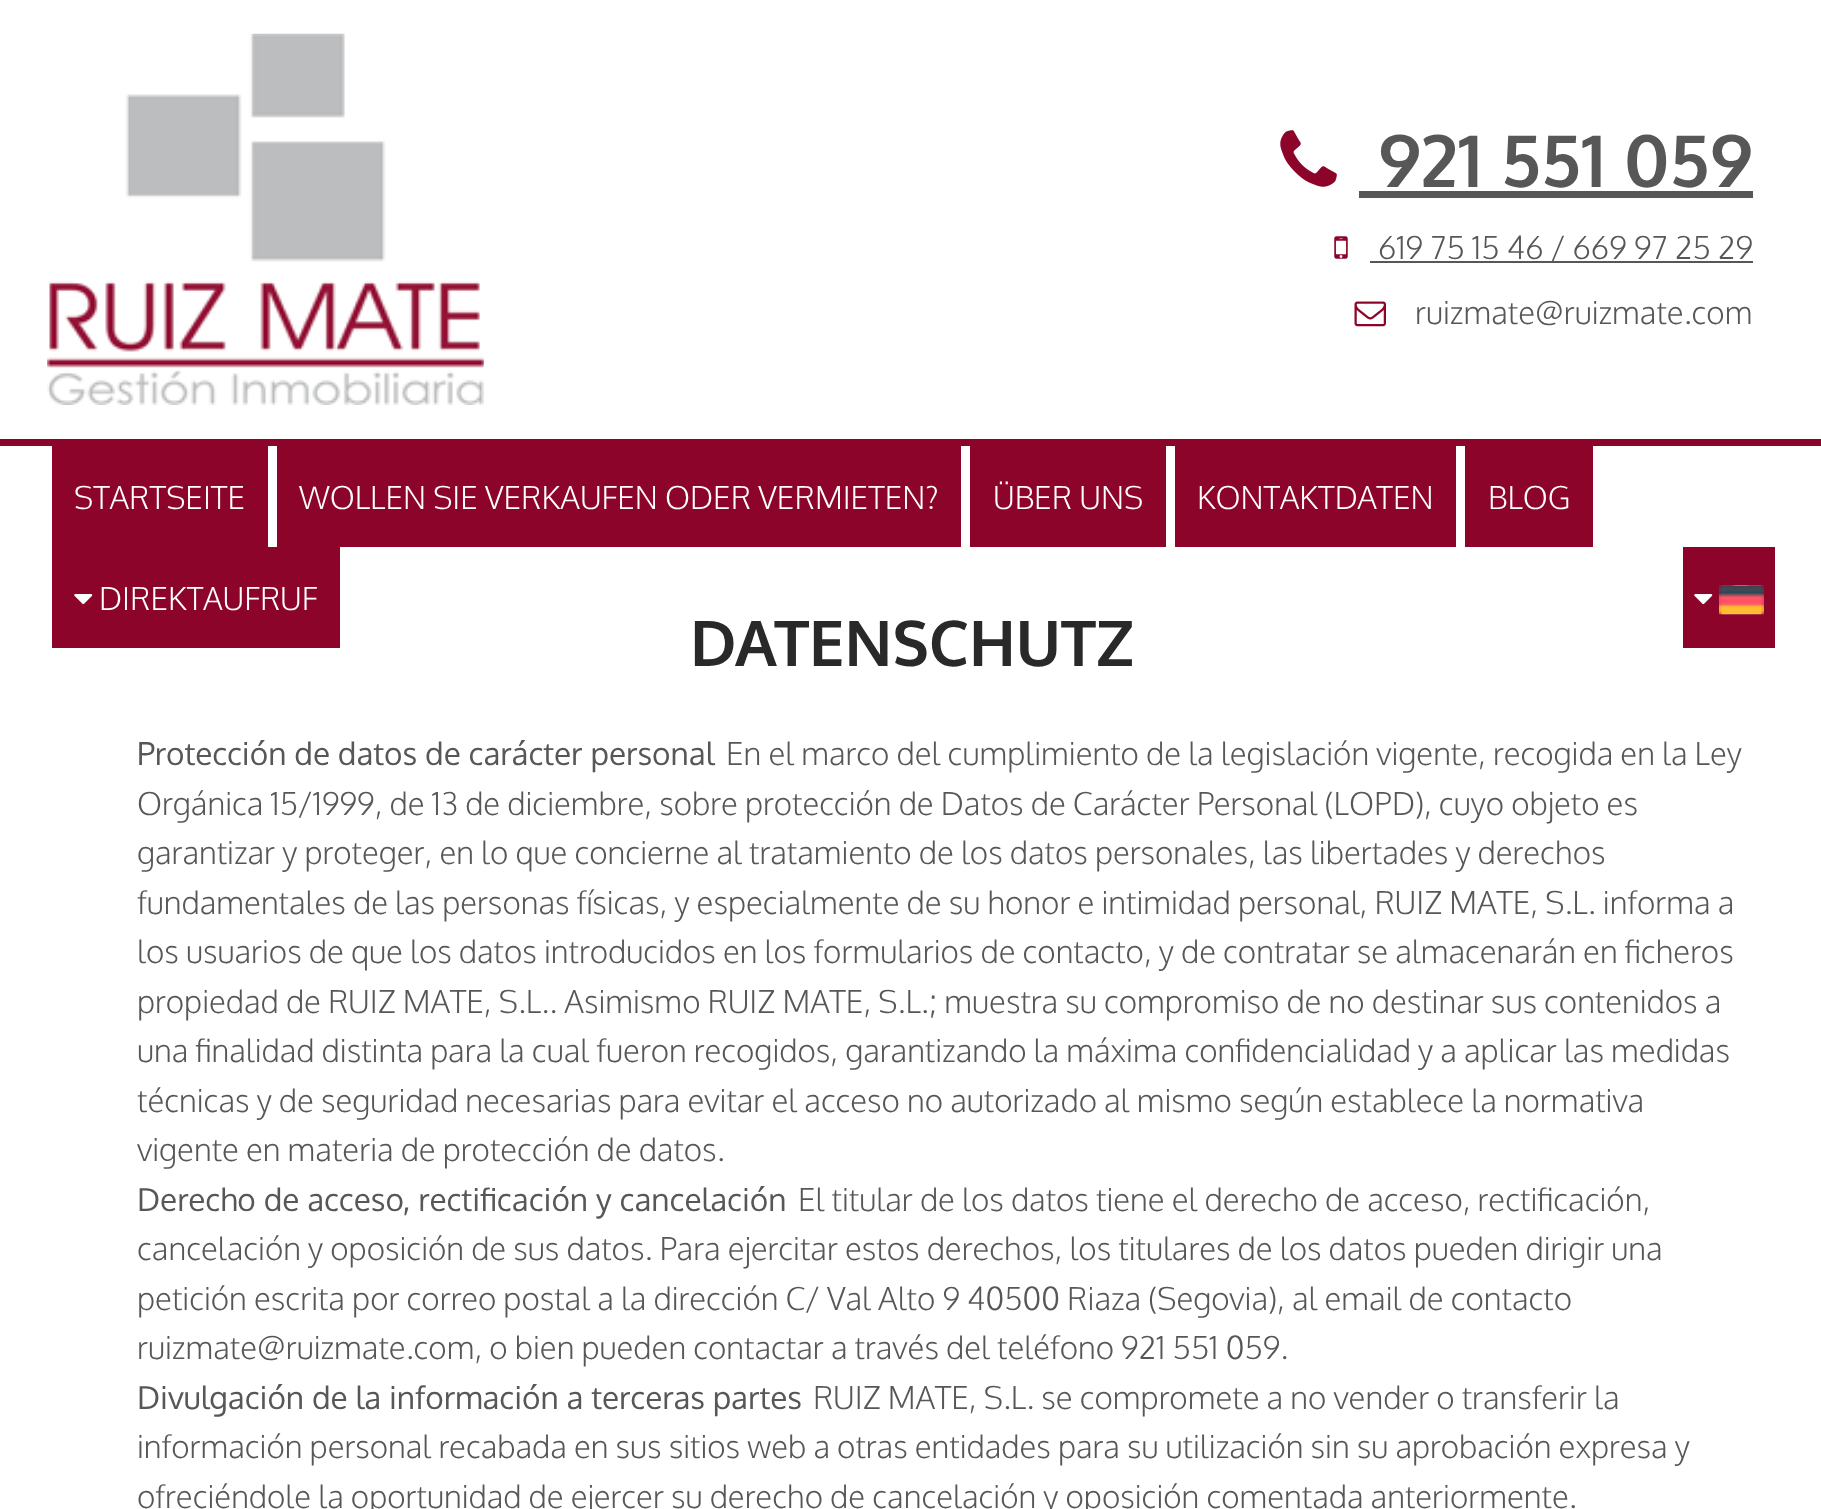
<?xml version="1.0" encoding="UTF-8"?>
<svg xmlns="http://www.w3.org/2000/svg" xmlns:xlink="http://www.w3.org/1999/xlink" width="1821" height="1509">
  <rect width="100%" height="100%" fill="#ffffff" />
  <image x="47" y="33" width="437" height="372" xlink:href="image1.png" />
  <image x="1280" y="130" width="57" height="57" xlink:href="image2.png" />
  <rect x="1359" y="191" width="394" height="7" fill="#575757" />
  <image x="1334" y="236" width="14" height="23" xlink:href="image3.png" />
  <rect x="1370" y="261" width="383" height="2" fill="#575757" />
  <image x="1354" y="301" width="32" height="26" xlink:href="image4.png" />
  <rect y="439" width="1821" height="7" fill="#8d042a" />
  <rect x="52" y="446" width="216" height="101" fill="#8d042a" />
  <rect x="277" y="446" width="684" height="101" fill="#8d042a" />
  <rect x="970" y="446" width="196" height="101" fill="#8d042a" />
  <rect x="1175" y="446" width="281" height="101" fill="#8d042a" />
  <rect x="1465" y="446" width="128" height="101" fill="#8d042a" />
  <rect x="52" y="547" width="288" height="101" fill="#8d042a" />
  <image x="74" y="594" width="19" height="11" xlink:href="image5.png" />
  <rect x="1683" y="547" width="92" height="101" fill="#8d042a" />
  <image x="1694" y="594" width="19" height="11" xlink:href="image5.png" />
  <image x="1719" y="585" width="45" height="30" xlink:href="image6.png" />
  <text x="1378" y="187" style="font-family: Oxygen; font-size: 72px; font-weight: bold; fill: #575757">921 551 059</text>
  <text x="1378" y="259" style="font-family: Oxygen; font-size: 31.5px; font-weight: 300; fill: #575757">619 75 15 46 / 669 97 25 29</text>
  <text x="1415" y="324" style="font-family: Oxygen; font-size: 31.5px; font-weight: 300; fill: #575757">ruizmate@ruizmate.com</text>
  <text x="74" y="509" style="font-family: Oxygen; font-size: 31.5px; font-weight: 300; fill: #ffffff">STARTSEITE</text>
  <text x="299" y="509" style="font-family: Oxygen; font-size: 31.5px; font-weight: 300; fill: #ffffff">WOLLEN SIE VERKAUFEN ODER VERMIETEN?</text>
  <text x="993" y="509" style="font-family: Oxygen; font-size: 31.5px; font-weight: 300; fill: #ffffff">ÜBER UNS</text>
  <text x="1197" y="509" style="font-family: Oxygen; font-size: 31.5px; font-weight: 300; fill: #ffffff">KONTAKTDATEN</text>
  <text x="1488" y="509" style="font-family: Oxygen; font-size: 31.5px; font-weight: 300; fill: #ffffff">BLOG</text>
  <text x="99" y="610" style="font-family: Oxygen; font-size: 31.5px; font-weight: 300; fill: #ffffff">DIREKTAUFRUF</text>
  <text x="690" y="666" style="font-family: Oxygen; font-size: 63px; font-weight: bold; fill: #292929">DATENSCHUTZ</text>
  <text x="137" y="765" style="font-family: Oxygen; font-size: 31.5px; fill: #575757">Protección de datos de carácter personal</text>
  <text x="726" y="765" style="font-family: Oxygen; font-size: 31.5px; font-weight: 300; fill: #575757">En el marco del cumplimiento de la legislación vigente, recogida en la Ley</text>
  <text x="137" y="815" style="font-family: Oxygen; font-size: 31.5px; font-weight: 300; fill: #575757">Orgánica 15/1999, de 13 de diciembre, sobre protección de Datos de Carácter Personal (LOPD), cuyo objeto es</text>
  <text x="137" y="864" style="font-family: Oxygen; font-size: 31.5px; font-weight: 300; fill: #575757">garantizar y proteger, en lo que concierne al tratamiento de los datos personales, las libertades y derechos</text>
  <text x="137" y="914" style="font-family: Oxygen; font-size: 31.5px; font-weight: 300; fill: #575757">fundamentales de las personas físicas, y especialmente de su honor e intimidad personal, RUIZ MATE, S.L. informa a</text>
  <text x="137" y="963" style="font-family: Oxygen; font-size: 31.5px; font-weight: 300; fill: #575757">los usuarios de que los datos introducidos en los formularios de contacto, y de contratar se almacenarán en ficheros</text>
  <text x="137" y="1013" style="font-family: Oxygen; font-size: 31.5px; font-weight: 300; fill: #575757">propiedad de RUIZ MATE, S.L.. Asimismo RUIZ MATE, S.L.; muestra su compromiso de no destinar sus contenidos a</text>
  <text x="137" y="1062" style="font-family: Oxygen; font-size: 31.5px; font-weight: 300; fill: #575757">una finalidad distinta para la cual fueron recogidos, garantizando la máxima confidencialidad y a aplicar las medidas</text>
  <text x="137" y="1112" style="font-family: Oxygen; font-size: 31.5px; font-weight: 300; fill: #575757">técnicas y de seguridad necesarias para evitar el acceso no autorizado al mismo según establece la normativa</text>
  <text x="137" y="1161" style="font-family: Oxygen; font-size: 31.5px; font-weight: 300; fill: #575757">vigente en materia de protección de datos.</text>
  <text x="137" y="1211" style="font-family: Oxygen; font-size: 31.5px; fill: #575757">Derecho de acceso, rectificación y cancelación</text>
  <text x="798" y="1211" style="font-family: Oxygen; font-size: 31.5px; font-weight: 300; fill: #575757">El titular de los datos tiene el derecho de acceso, rectificación,</text>
  <text x="137" y="1260" style="font-family: Oxygen; font-size: 31.5px; font-weight: 300; fill: #575757">cancelación y oposición de sus datos. Para ejercitar estos derechos, los titulares de los datos pueden dirigir una</text>
  <text x="137" y="1310" style="font-family: Oxygen; font-size: 31.5px; font-weight: 300; fill: #575757">petición escrita por correo postal a la dirección C/ Val Alto 9 40500 Riaza (Segovia), al email de contacto</text>
  <text x="137" y="1359" style="font-family: Oxygen; font-size: 31.5px; font-weight: 300; fill: #575757">ruizmate@ruizmate.com, o bien pueden contactar a través del teléfono 921 551 059.</text>
  <text x="137" y="1409" style="font-family: Oxygen; font-size: 31.5px; fill: #575757">Divulgación de la información a terceras partes</text>
  <text x="813" y="1409" style="font-family: Oxygen; font-size: 31.5px; font-weight: 300; fill: #575757">RUIZ MATE, S.L. se compromete a no vender o transferir la</text>
  <text x="137" y="1458" style="font-family: Oxygen; font-size: 31.5px; font-weight: 300; fill: #575757">información personal recabada en sus sitios web a otras entidades para su utilización sin su aprobación expresa y</text>
  <text x="137" y="1508" style="font-family: Oxygen; font-size: 31.5px; font-weight: 300; fill: #575757">ofreciéndole la oportunidad de ejercer su derecho de cancelación y oposición comentada anteriormente.</text>
</svg>
